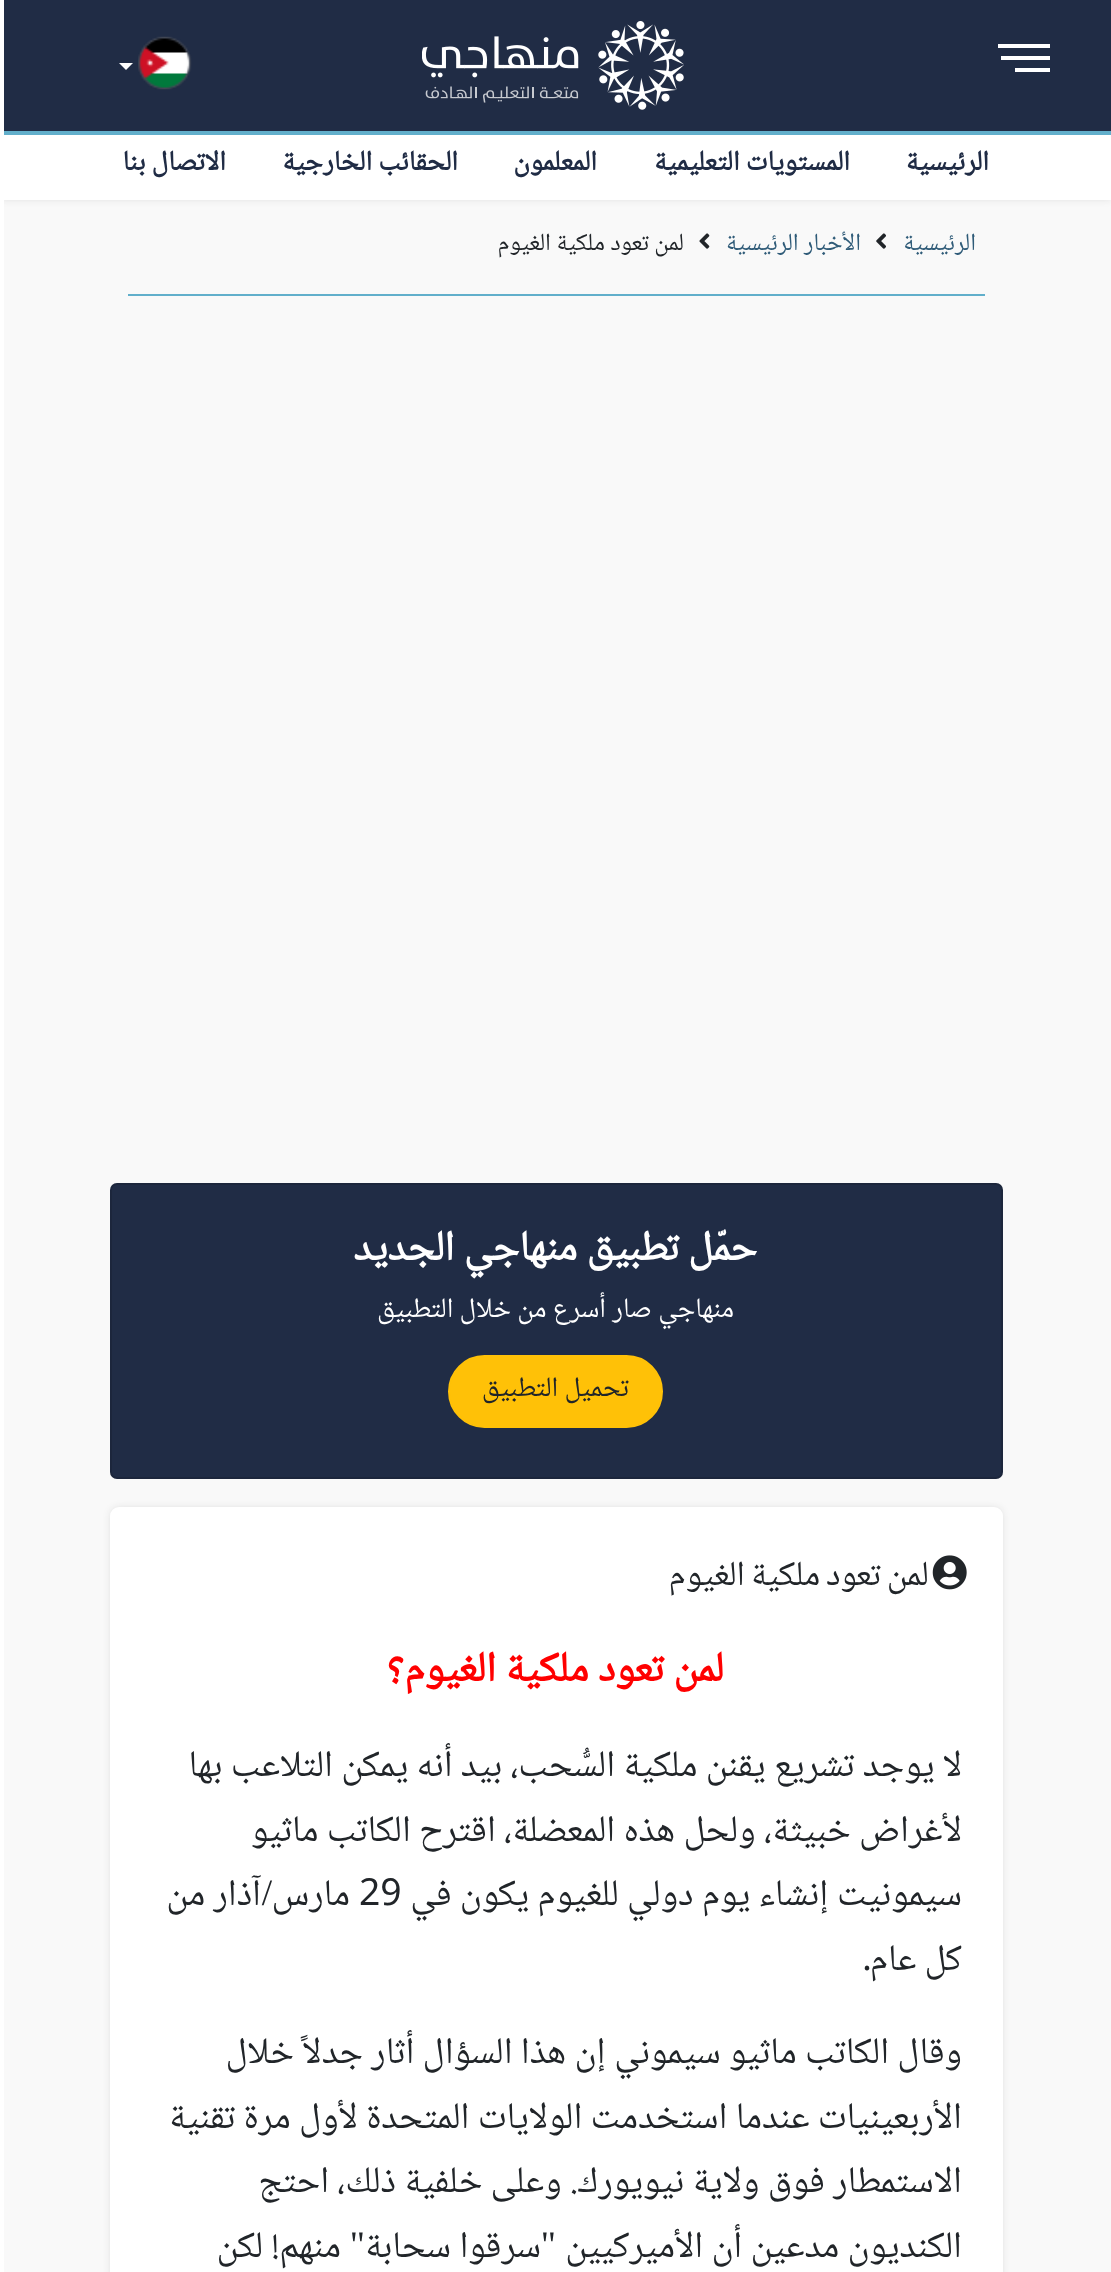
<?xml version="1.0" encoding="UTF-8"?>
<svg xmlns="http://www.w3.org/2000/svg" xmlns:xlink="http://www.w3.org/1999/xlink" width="1111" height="2272">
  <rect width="100%" height="100%" fill="#f9f9f9" />
  <rect y="130" width="1111" height="70" fill="#191919" fill-opacity="0.1" filter="blur(3.5px)" />
  <rect x="4" width="1107" height="131" fill="#202c45" />
  <rect y="131" width="1111" height="4" fill="#62afcb" />
  <rect x="998" y="44" width="52" height="4" fill="#ffffff" />
  <rect x="1001" y="56" width="49" height="4" fill="#ffffff" />
  <rect x="1015" y="68" width="35" height="4" fill="#ffffff" />
  <image x="422" y="21" width="262" height="89" xlink:href="image1.png" />
  <image x="138" y="36" width="54" height="54" xlink:href="image2.png" />
  <path d="M 119 63 h 14 l -7 7 z" fill="#ffffff" />
  <rect x="4" y="135" width="1107" height="65" fill="#ffffff" />
  <rect x="128" y="294" width="857" height="2" fill="#61afcb" />
  <image x="876" y="233" width="10" height="16" xlink:href="image3.png" />
  <image x="699" y="233" width="11" height="16" xlink:href="image4.png" />
  <rect x="110" y="1183" width="893" height="296" rx="7" fill="#202c45" />
  <rect x="111" y="1184" width="891" height="294" rx="6" fill="none" stroke="#000000" stroke-opacity="0.12" stroke-width="2" />
  <rect x="449" y="1356" width="213" height="71" rx="35.5" fill="#ffc107" stroke="#ffc107" stroke-width="2" />
  <rect x="110" y="1507" width="893" height="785" rx="9" fill="#191919" fill-opacity="0.1" filter="blur(3.5px)" />
  <rect x="110" y="1507" width="893" height="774" rx="9" fill="#ffffff" />
  <image x="932" y="1555" width="35" height="35" xlink:href="image5.png" />
  <rect width="4" height="2272" fill="#ffffff" />
  <text x="989" y="170" style="font-family: Noto Naskh Arabic; font-size: 28px; font-weight: bold; direction: rtl; fill: #202c45">الرئيسية</text>
  <text x="850" y="170" style="font-family: Noto Naskh Arabic; font-size: 28px; font-weight: bold; direction: rtl; fill: #202c45">المستويات التعليمية</text>
  <text x="597" y="170" style="font-family: Noto Naskh Arabic; font-size: 28px; font-weight: bold; direction: rtl; fill: #202c45">المعلمون</text>
  <text x="458" y="170" style="font-family: Noto Naskh Arabic; font-size: 28px; font-weight: bold; direction: rtl; fill: #202c45">الحقائب الخارجية</text>
  <text x="226" y="170" style="font-family: Noto Naskh Arabic; font-size: 28px; font-weight: bold; direction: rtl; fill: #202c45">الاتصال بنا</text>
  <text x="976" y="250" style="font-family: Noto Naskh Arabic; font-size: 24.5px; direction: rtl; fill: #2f5b78">الرئيسية</text>
  <text x="861" y="250" style="font-family: Noto Naskh Arabic; font-size: 24.5px; direction: rtl; fill: #2f5b78">الأخبار الرئيسية</text>
  <text x="684" y="250" style="font-family: Noto Naskh Arabic; font-size: 24.5px; direction: rtl; fill: #212529">لمن تعود ملكية الغيوم</text>
  <text x="757" y="1260" style="font-family: Noto Naskh Arabic; font-size: 42px; font-weight: bold; direction: rtl; fill: #ffffff">حمّل تطبيق منهاجي الجديد</text>
  <text x="734" y="1317" style="font-family: Noto Naskh Arabic; font-size: 28px; direction: rtl; fill: #ffffff">منهاجي صار أسرع من خلال التطبيق</text>
  <text x="629" y="1396" style="font-family: Noto Naskh Arabic; font-size: 28px; direction: rtl; fill: #212529">تحميل التطبيق</text>
  <text x="929" y="1585" word-spacing="-2" style="font-family: Noto Naskh Arabic; font-size: 35px; letter-spacing: 0.9px; direction: rtl; fill: #212529">لمن تعود ملكية الغيوم</text>
  <text x="724" y="1681" style="font-family: Noto Naskh Arabic; font-size: 42px; font-weight: bold; direction: rtl; fill: #ff0000">لمن تعود ملكية الغيوم؟</text>
  <text x="962" y="1776" style="font-family: Noto Naskh Arabic; font-size: 37.3px; direction: rtl; fill: #212529">لا يوجد تشريع يقنن ملكية السُّحب، بيد أنه يمكن التلاعب بها</text>
  <text x="962" y="1841" style="font-family: Noto Naskh Arabic; font-size: 37.3px; direction: rtl; fill: #212529">لأغراض خبيثة، ولحل هذه المعضلة، اقترح الكاتب ماثيو</text>
  <text x="962" y="1905" style="font-family: Noto Naskh Arabic; font-size: 37.3px; direction: rtl; fill: #212529">سيمونيت إنشاء يوم دولي للغيوم يكون في</text>
  <text x="359" y="1905" style="font-family: Noto Naskh Arabic; font-size: 37.3px; fill: #212529">29</text>
  <text x="350" y="1905" style="font-family: Noto Naskh Arabic; font-size: 37.3px; direction: rtl; fill: #212529">مارس</text>
  <text x="261" y="1905" style="font-family: Noto Naskh Arabic; font-size: 37.3px; direction: rtl; fill: #212529">آذار من</text>
  <text x="272" y="1905" style="font-family: Liberation Serif; font-size: 37.3px; direction: rtl; fill: #212529">/</text>
  <text x="962" y="1970" style="font-family: Noto Naskh Arabic; font-size: 37.3px; direction: rtl; fill: #212529">كل عام</text>
  <text x="862" y="1970" style="font-family: Noto Naskh Arabic; font-size: 37.3px; fill: #212529">.</text>
  <text x="962" y="2063" style="font-family: Noto Naskh Arabic; font-size: 37.3px; direction: rtl; fill: #212529">وقال الكاتب ماثيو سيموني إن هذا السؤال أثار جدلاً خلال</text>
  <text x="962" y="2128" style="font-family: Noto Naskh Arabic; font-size: 37.3px; direction: rtl; fill: #212529">الأربعينيات عندما استخدمت الولايات المتحدة لأول مرة تقنية</text>
  <text x="962" y="2192" style="font-family: Noto Naskh Arabic; font-size: 37.3px; direction: rtl; fill: #212529">الاستمطار فوق ولاية نيويورك. وعلى خلفية ذلك، احتج</text>
  <text x="962" y="2257" style="font-family: Noto Naskh Arabic; font-size: 37.3px; direction: rtl; fill: #212529">الكنديون مدعين أن الأميركيين</text>
  <text x="556" y="2257" style="font-family: Liberation Serif; font-size: 37.3px; direction: rtl; fill: #212529">"</text>
  <text x="541" y="2257" style="font-family: Noto Naskh Arabic; font-size: 37.3px; direction: rtl; fill: #212529">سرقوا سحابة</text>
  <text x="365" y="2257" style="font-family: Liberation Serif; font-size: 37.3px; direction: rtl; fill: #212529">"</text>
  <text x="341" y="2257" style="font-family: Noto Naskh Arabic; font-size: 37.3px; direction: rtl; fill: #212529">منهم! لكن</text>
</svg>
